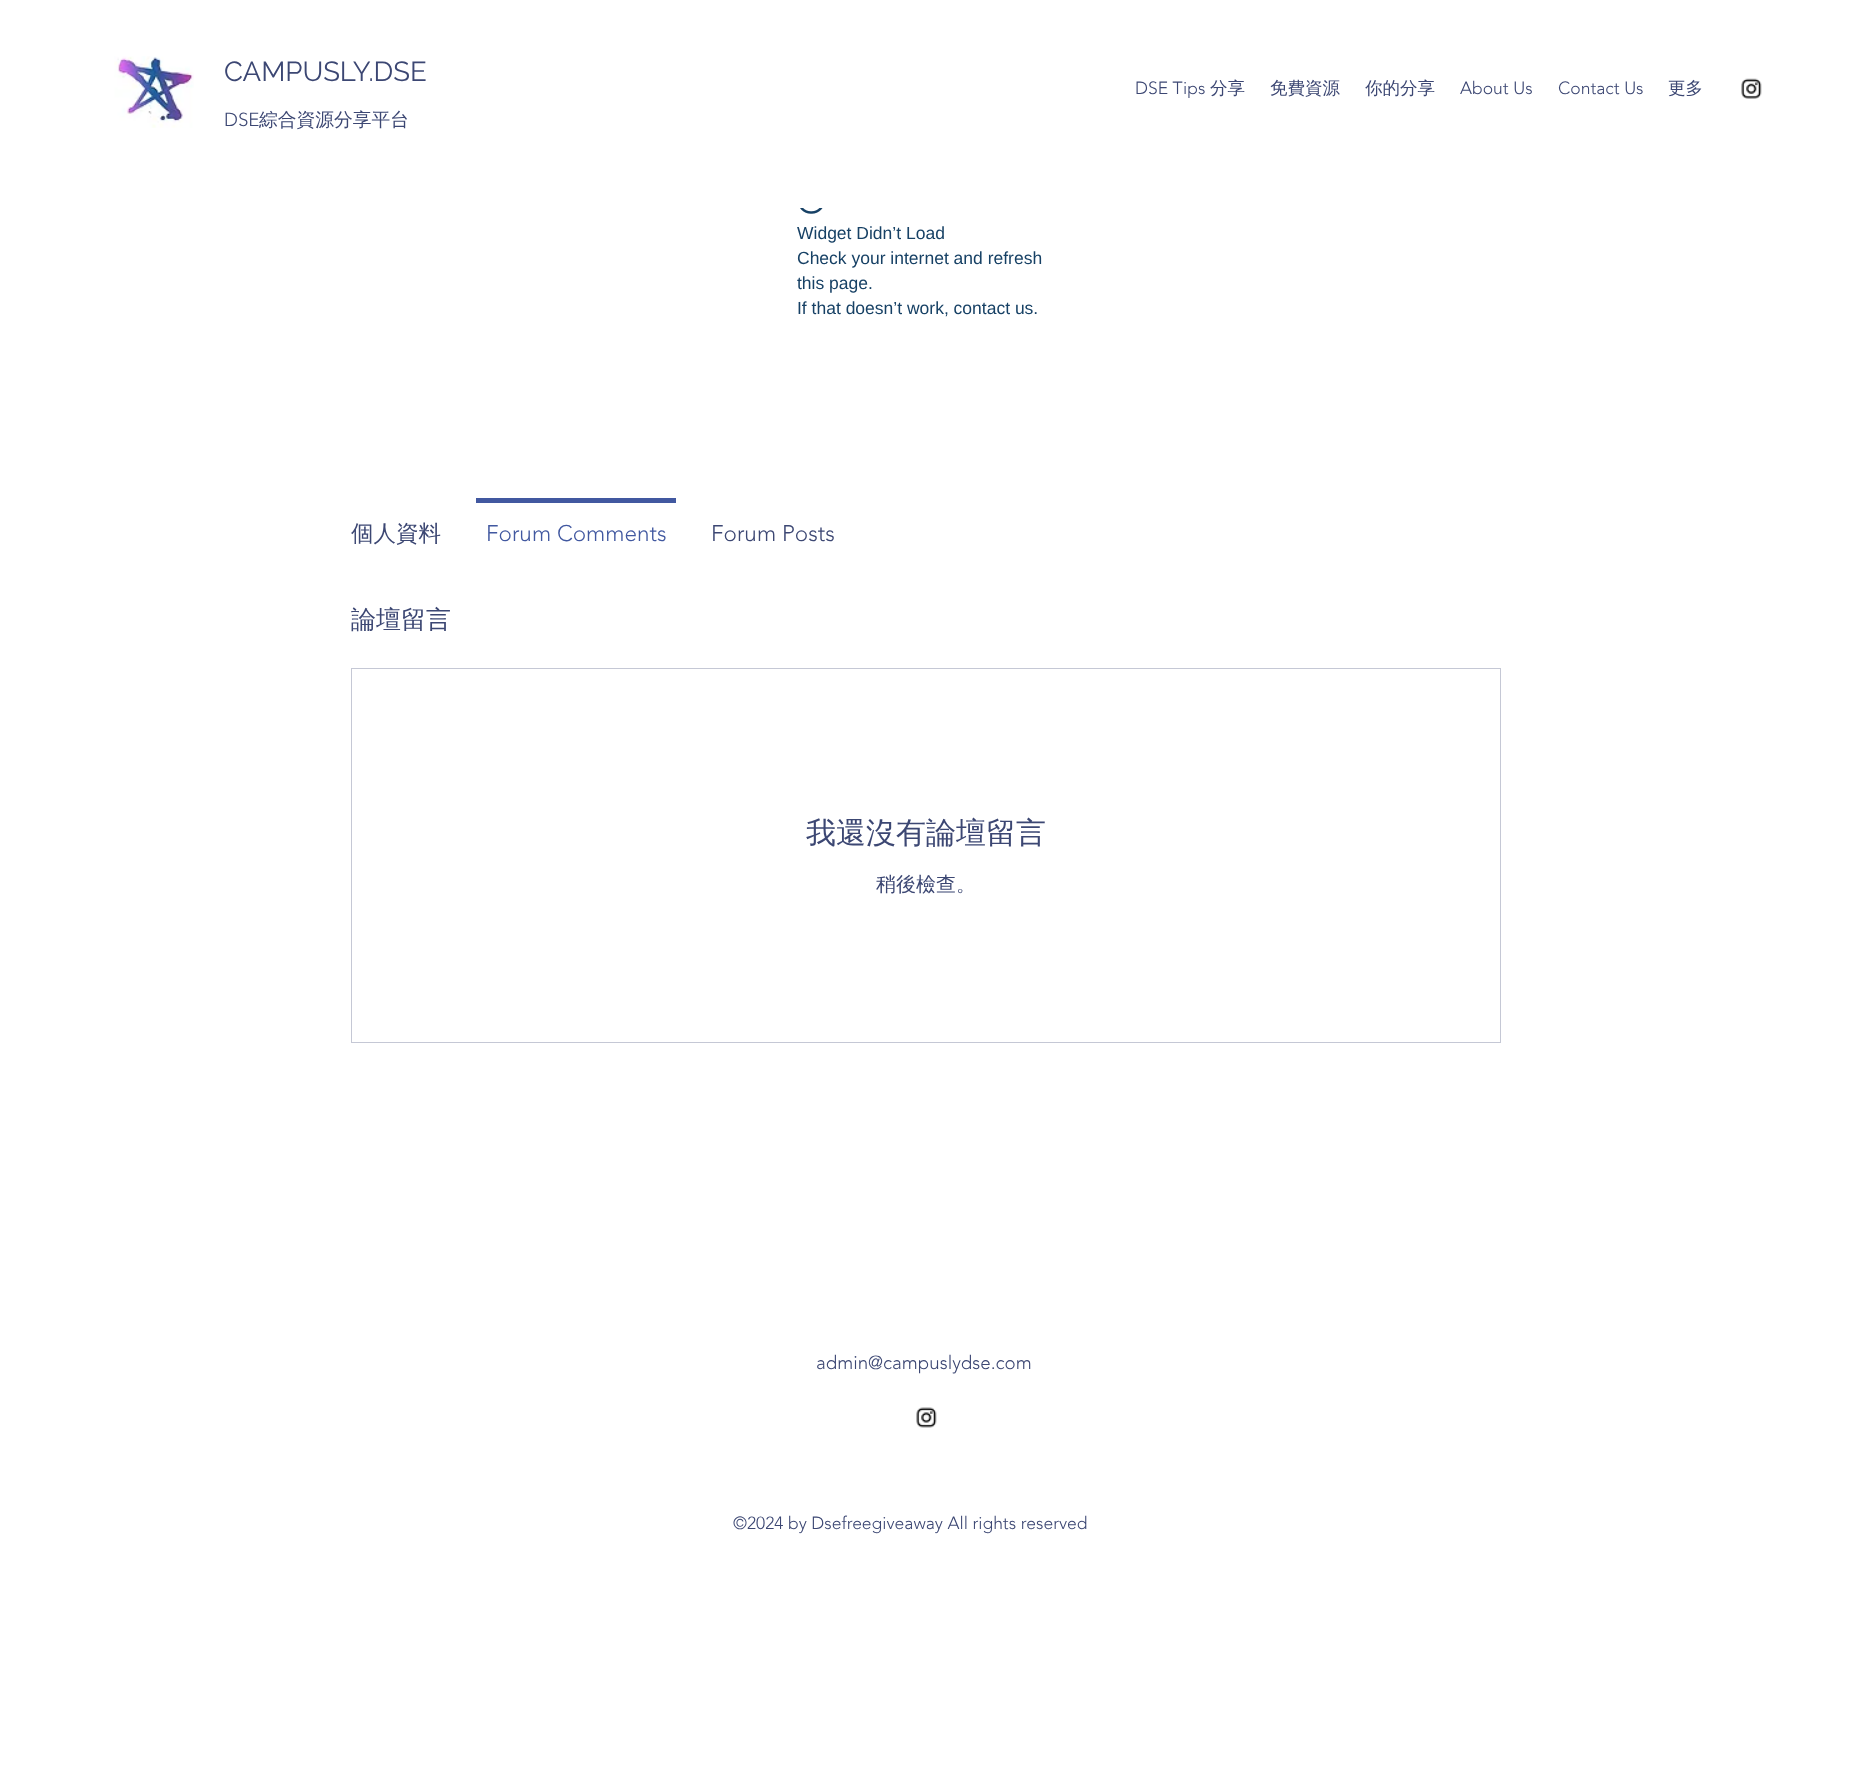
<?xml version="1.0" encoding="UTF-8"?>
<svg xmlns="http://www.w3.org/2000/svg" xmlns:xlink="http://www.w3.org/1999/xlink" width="1851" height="1782">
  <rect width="100%" height="100%" fill="#ffffff" />
  <image x="114" y="56" width="80" height="72" xlink:href="image1.png" />
  <image x="1741" y="78" width="21" height="21" xlink:href="image2.png" />
  <image x="800" y="208" width="23" height="6" xlink:href="image3.png" />
  <rect x="476" y="498" width="200" height="5" fill="#4158a0" />
  <rect x="351.5" y="668.5" width="1149" height="374" fill="none" stroke="#c5c8d5" />
  <image x="916" y="1407" width="21" height="21" xlink:href="image4.png" />
  <text x="224" y="81" style="font-family: Raleway; font-size: 27.5px; fill: #3c4773">CAMPUSLY.DSE</text>
  <text x="224" y="126" style="font-family: 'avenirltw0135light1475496'; font-size: 18.75px; font-weight: 300; fill: #3c4773">DSE</text>
  <text x="259" y="126" style="font-family: WenQuanYi Zen Hei; font-size: 18.75px; font-weight: 500; fill: #3c4773">綜合資源分享平台</text>
  <text x="1135" y="94" style="font-family: 'avenirltw0135light1475496'; font-size: 17.5px; font-weight: 300; fill: #3c4773">DSE Tips</text>
  <text x="1210" y="94" style="font-family: WenQuanYi Zen Hei; font-size: 17.5px; font-weight: 500; fill: #3c4773">分享</text>
  <text x="1270" y="94" style="font-family: WenQuanYi Zen Hei; font-size: 17.5px; font-weight: 500; fill: #3c4773">免費資源</text>
  <text x="1365" y="94" style="font-family: WenQuanYi Zen Hei; font-size: 17.5px; font-weight: 500; fill: #3c4773">你的分享</text>
  <text x="1460" y="94" style="font-family: 'avenirltw0135light1475496'; font-size: 17.5px; font-weight: 300; fill: #3c4773">About Us</text>
  <text x="1558" y="94" style="font-family: 'avenirltw0135light1475496'; font-size: 17.5px; font-weight: 300; fill: #3c4773">Contact Us</text>
  <text x="1668" y="94" style="font-family: WenQuanYi Zen Hei; font-size: 17.5px; font-weight: 500; fill: #3c4773">更多</text>
  <text x="797" y="239" style="font-family: Liberation Sans; font-size: 17.5px; fill: #174165">Widget Didn’t Load</text>
  <text x="797" y="264" style="font-family: Liberation Sans; font-size: 17.5px; fill: #174165">Check your internet and refresh</text>
  <text x="797" y="289" style="font-family: Liberation Sans; font-size: 17.5px; fill: #174165">this page.</text>
  <text x="797" y="314" style="font-family: Liberation Sans; font-size: 17.5px; fill: #174165">If that doesn’t work, contact us.</text>
  <text x="351" y="541" style="font-family: WenQuanYi Zen Hei; font-size: 22.5px; font-weight: 500; fill: #3c4773">個人資料</text>
  <text x="486" y="541" style="font-family: 'avenirltw0135light1475496'; font-size: 22.5px; font-weight: 300; fill: #4158a0">Forum Comments</text>
  <text x="711" y="541" style="font-family: 'avenirltw0135light1475496'; font-size: 22.5px; font-weight: 300; fill: #3c4773">Forum Posts</text>
  <text x="351" y="628" style="font-family: WenQuanYi Zen Hei; font-size: 25px; font-weight: 500; fill: #3c4773">論壇留言</text>
  <text x="806" y="843" style="font-family: WenQuanYi Zen Hei; font-size: 30px; font-weight: 500; fill: #3c4773">我還沒有論壇留言</text>
  <text x="876" y="891" style="font-family: WenQuanYi Zen Hei; font-size: 20px; font-weight: 500; fill: #3c4773">稍後檢查。</text>
  <text x="816" y="1369" style="font-family: 'avenirltw0135light1475496'; font-size: 18.75px; font-weight: 300; fill: #3c4773">admin@campuslydse.com</text>
  <text x="733" y="1529" style="font-family: 'avenirltw0135light1475496'; font-size: 17.5px; font-weight: 300; fill: #3c4773">©2024 by Dsefreegiveaway All rights reserved</text>
</svg>
